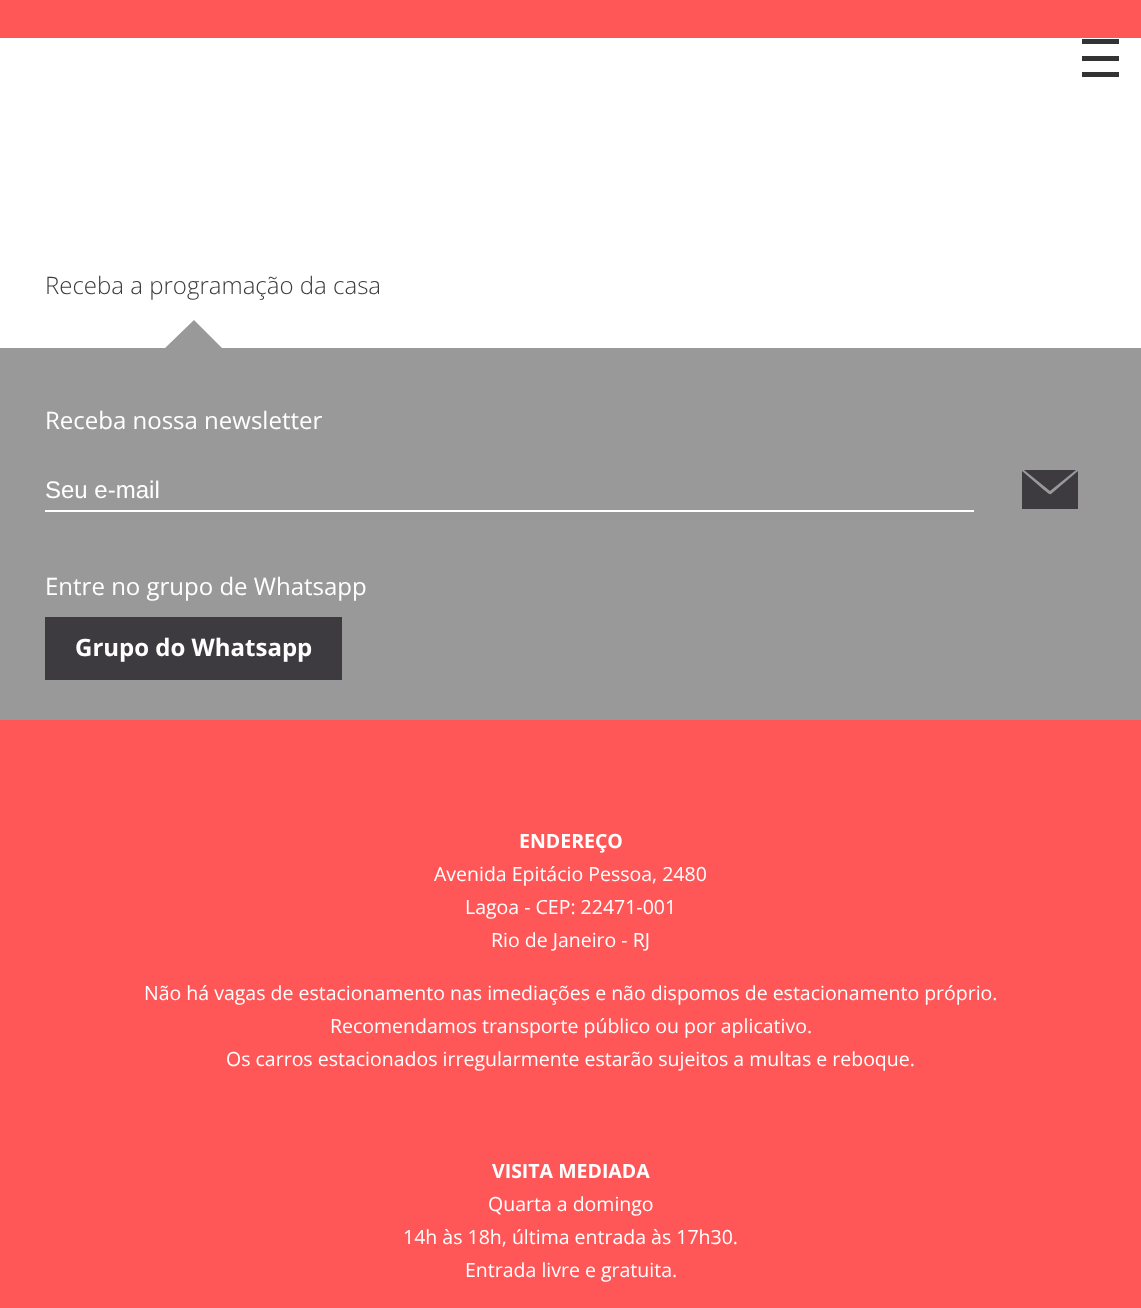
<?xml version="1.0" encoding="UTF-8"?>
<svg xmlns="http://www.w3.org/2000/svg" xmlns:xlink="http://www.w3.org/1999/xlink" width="1141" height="1308">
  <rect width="100%" height="100%" fill="#ffffff" />
  <rect width="1141" height="38" fill="#ff5757" />
  <rect x="1082" y="39" width="37" height="5" fill="#333333" />
  <rect x="1082" y="56" width="37" height="5" fill="#333333" />
  <rect x="1082" y="72" width="37" height="5" fill="#333333" />
  <rect y="348" width="1141" height="372" fill="#999999" />
  <path d="M 194 320 l 29 29 l -29 30 l -30 -30 z" fill="#999999" />
  <rect x="45" y="510" width="929" height="2" fill="#ffffff" />
  <path d="M 1076 470 h -52 l 26 21 z" fill="#3d3b3f" />
  <path d="M 1051 494 c -2 1 -5 -3 -7 -4 l -22 -19 v 38 h 56 v -38 z" fill="#3d3b3f" />
  <rect x="45" y="617" width="297" height="63" fill="#3d3b3f" />
  <rect y="720" width="1141" height="588" fill="#ff5757" />
  <text x="45" y="294" style="font-family: Open Sans; font-size: 24px; font-weight: 300; fill: #3d3b3f">Receba a programação da casa</text>
  <text x="45" y="429" style="font-family: Open Sans; font-size: 24px; fill: #ffffff">Receba nossa newsletter</text>
  <text x="45" y="498" style="font-family: Liberation Sans; font-size: 24px; fill: #ffffff">Seu e-mail</text>
  <text x="45" y="595" style="font-family: Open Sans; font-size: 24px; fill: #ffffff">Entre no grupo de Whatsapp</text>
  <text x="75" y="656" style="font-family: Open Sans; font-size: 24px; font-weight: bold; fill: #ffffff">Grupo do Whatsapp</text>
  <text x="519" y="848" style="font-family: Open Sans; font-size: 19.5px; font-weight: bold; fill: #ffffff">ENDEREÇO</text>
  <text x="434" y="881" style="font-family: Open Sans; font-size: 19.5px; fill: #ffffff">Avenida Epitácio Pessoa, 2480</text>
  <text x="465" y="914" style="font-family: Open Sans; font-size: 19.5px; fill: #ffffff">Lagoa - CEP: 22471-001</text>
  <text x="491" y="947" style="font-family: Open Sans; font-size: 19.5px; fill: #ffffff">Rio de Janeiro - RJ</text>
  <text x="144" y="1000" style="font-family: Open Sans; font-size: 19.5px; fill: #ffffff">Não há vagas de estacionamento nas imediações e não dispomos de estacionamento próprio.</text>
  <text x="330" y="1033" style="font-family: Open Sans; font-size: 19.5px; fill: #ffffff">Recomendamos transporte público ou por aplicativo.</text>
  <text x="226" y="1066" style="font-family: Open Sans; font-size: 19.5px; fill: #ffffff">Os carros estacionados irregularmente estarão sujeitos a multas e reboque.</text>
  <text x="492" y="1178" style="font-family: Open Sans; font-size: 19.5px; font-weight: bold; fill: #ffffff">VISITA MEDIADA</text>
  <text x="488" y="1211" style="font-family: Open Sans; font-size: 19.5px; fill: #ffffff">Quarta a domingo</text>
  <text x="403" y="1244" style="font-family: Open Sans; font-size: 19.5px; fill: #ffffff">14h às 18h, última entrada às 17h30.</text>
  <text x="465" y="1277" style="font-family: Open Sans; font-size: 19.5px; fill: #ffffff">Entrada livre e gratuita.</text>
</svg>
